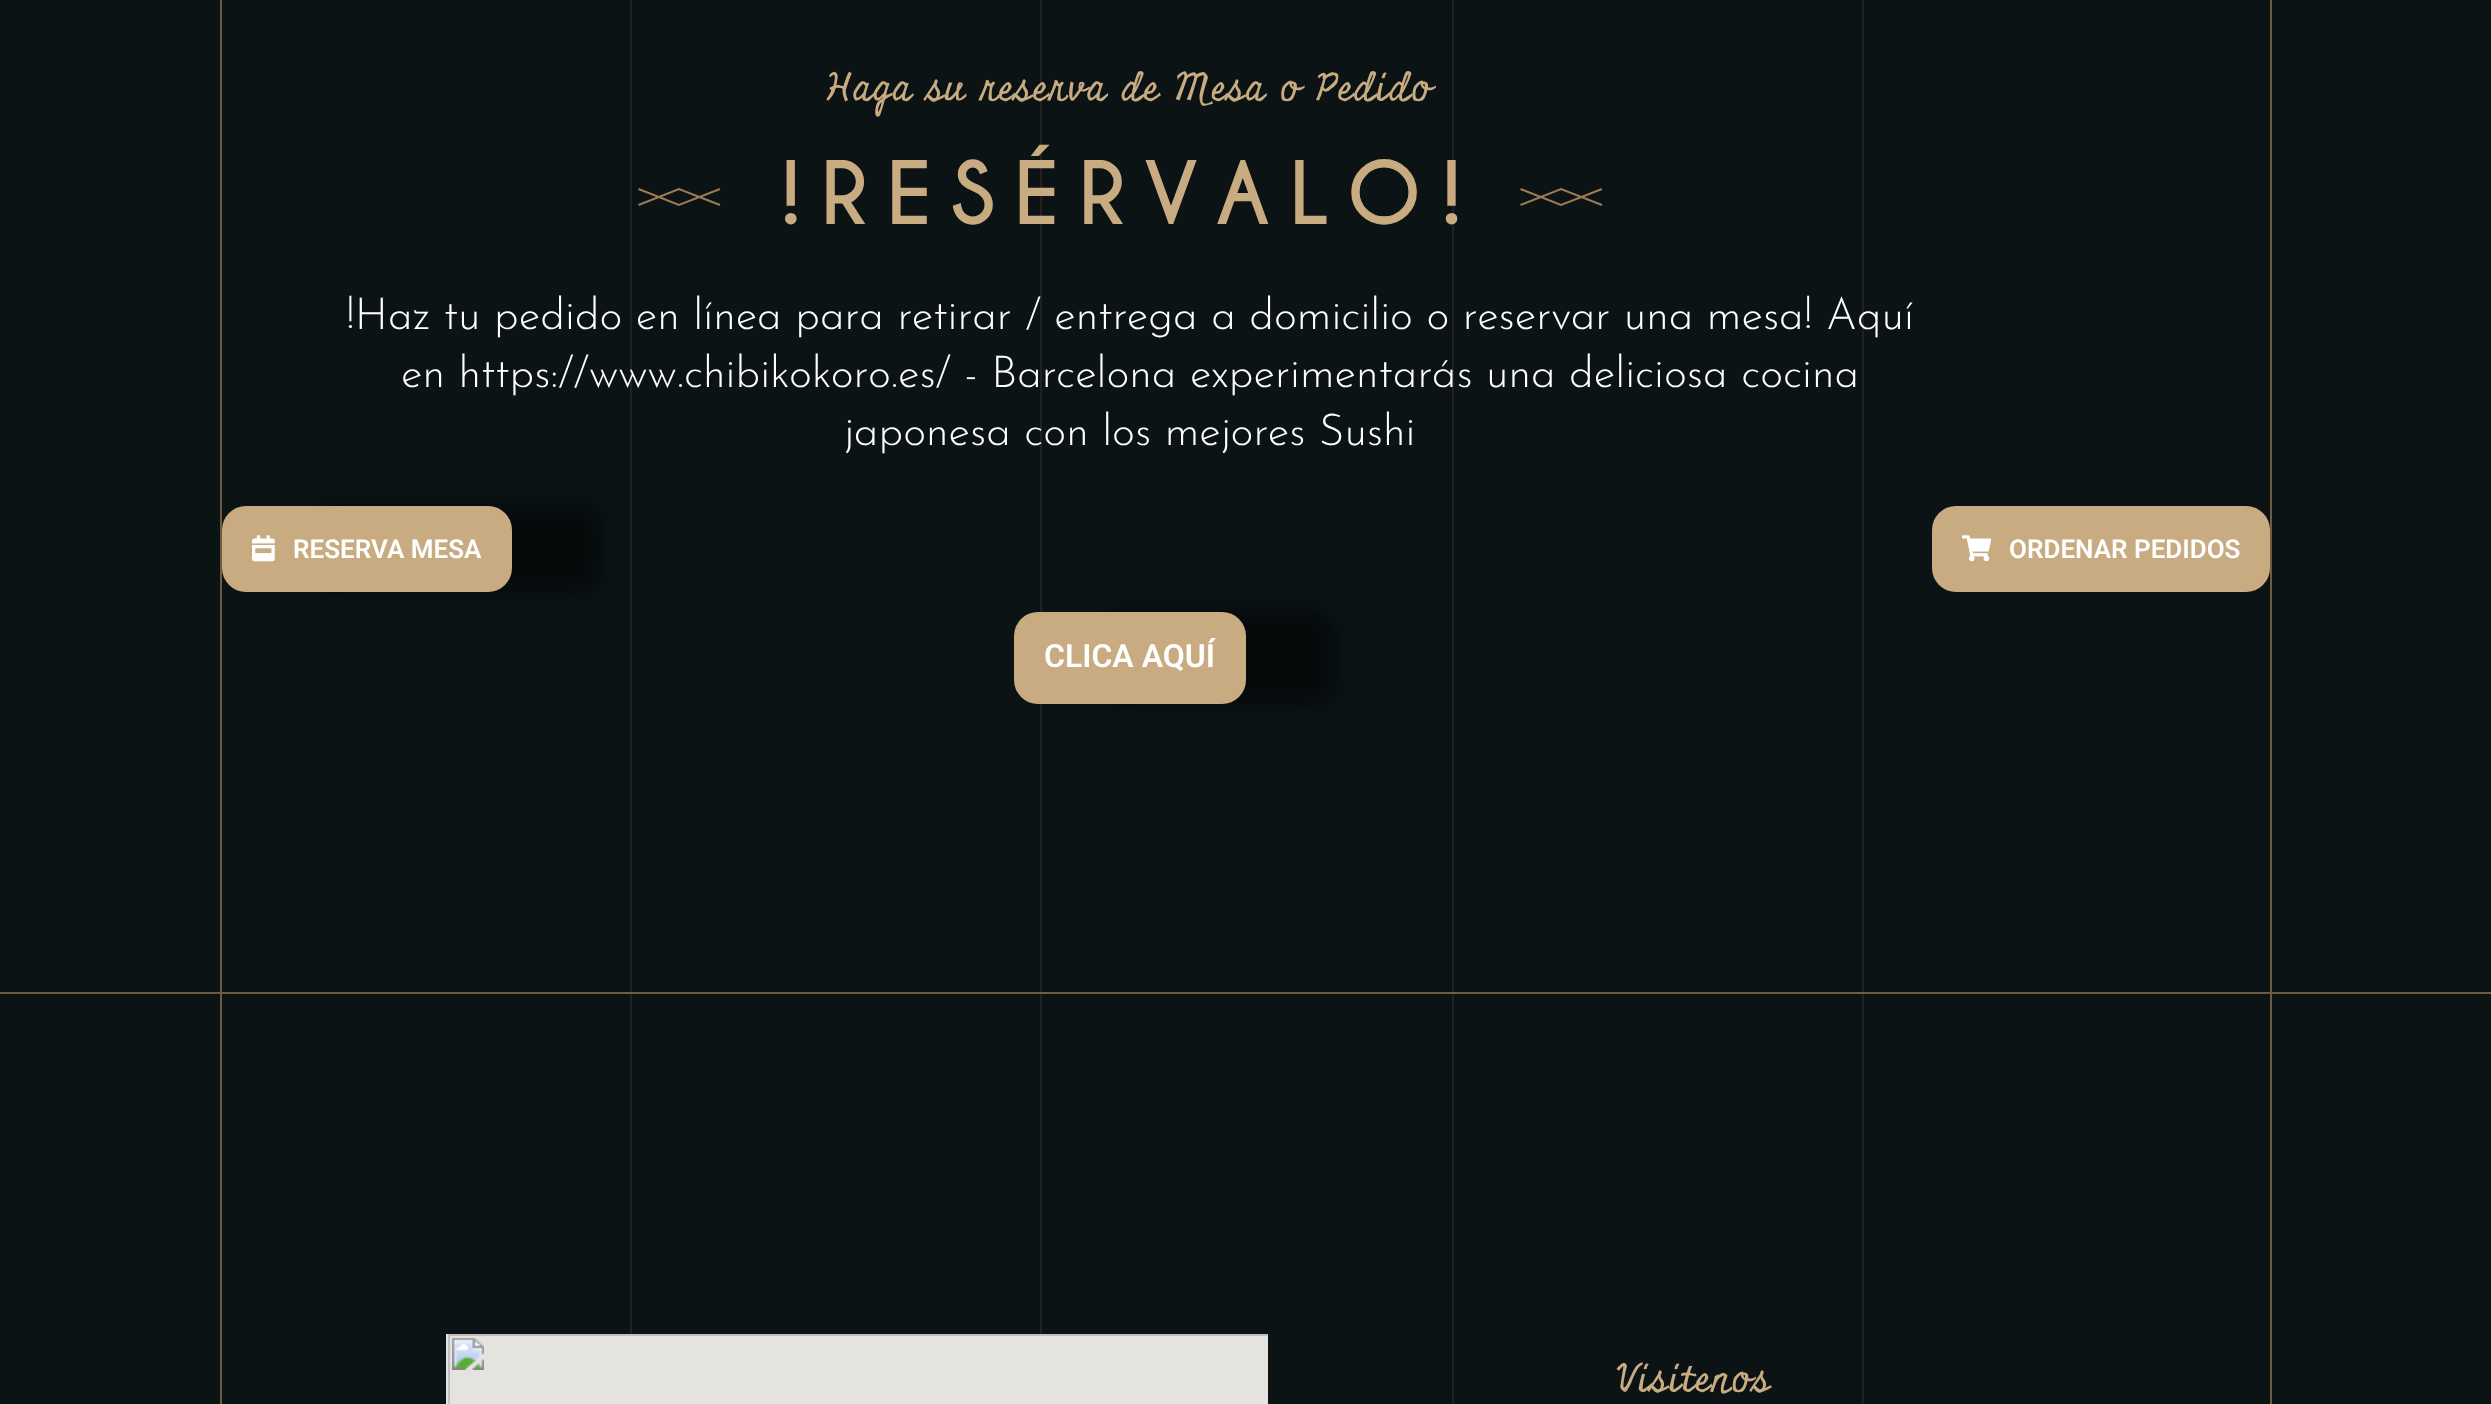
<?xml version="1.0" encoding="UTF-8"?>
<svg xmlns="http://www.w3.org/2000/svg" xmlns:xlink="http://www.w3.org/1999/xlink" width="2491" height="1404">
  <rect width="100%" height="100%" fill="#0b1315" />
  <rect x="630" width="2" height="1334" fill="#21221e" />
  <rect x="1040" width="2" height="1334" fill="#21221e" />
  <rect x="1452" width="2" height="1404" fill="#21221e" />
  <rect x="1862" width="2" height="1404" fill="#21221e" />
  <rect y="992" width="2491" height="2" fill="#715b3e" />
  <rect x="220" width="2" height="1404" fill="#715b3e" />
  <path d="M 720 205 l -41 -16 l -40.5 16" fill="none" stroke="#9c7c57" stroke-width="2" />
  <path d="M 720 189 l -41 16 l -40.5 -16" fill="none" stroke="#9c7c57" stroke-width="2" />
  <path d="M 1602 205 l -41 -16 l -40.5 16" fill="none" stroke="#9c7c57" stroke-width="2" />
  <path d="M 1602 189 l -41 16 l -40.5 -16" fill="none" stroke="#9c7c57" stroke-width="2" />
  <rect x="310" y="506" width="290" height="86" rx="24" fill="#000000" fill-opacity="0.5" filter="blur(10px)" />
  <rect x="222" y="506" width="290" height="86" rx="24" fill="#c9ab81" />
  <image x="252" y="535" width="23" height="27" xlink:href="image1.png" />
  <rect x="1932" y="506" width="338" height="86" rx="24" fill="#c9ab81" />
  <image x="1962" y="535" width="30" height="27" xlink:href="image2.png" />
  <rect x="1102" y="612" width="232" height="92" rx="24" fill="#000000" fill-opacity="0.5" filter="blur(10px)" />
  <rect x="1014" y="612" width="232" height="92" rx="24" fill="#c9ab81" />
  <image x="446" y="1334" width="822" height="70" xlink:href="image3.png" />
  <rect x="2270" width="2" height="1404" fill="#715b3e" />
  <text x="826" y="100" style="font-family: Miniver; font-size: 38px; letter-spacing: 1.5px; fill: #c9ab81">Haga su reserva de Mesa o Pedido</text>
  <text x="780" y="224" style="font-family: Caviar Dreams; font-size: 82px; font-weight: bold; letter-spacing: 18.9px; fill: #c9ab81">!RESÉRVALO!</text>
  <text x="346" y="329" style="font-family: Josefin Sans; font-size: 44px; font-weight: 300; fill: #ffffff">!Haz tu pedido en línea para retirar / entrega a domicilio o reservar una mesa! Aquí</text>
  <text x="401" y="387" style="font-family: Josefin Sans; font-size: 44px; font-weight: 300; fill: #ffffff">en https://www.chibikokoro.es/ - Barcelona experimentarás una deliciosa cocina</text>
  <text x="844" y="445" style="font-family: Josefin Sans; font-size: 44px; font-weight: 300; fill: #ffffff">japonesa con los mejores Sushi</text>
  <text x="293" y="558" style="font-family: Roboto; font-size: 26px; font-weight: 600; fill: #ffffff">RESERVA MESA</text>
  <text x="2009" y="558" style="font-family: Roboto; font-size: 26px; font-weight: 600; fill: #ffffff">ORDENAR PEDIDOS</text>
  <text x="1044" y="667" style="font-family: Roboto; font-size: 32px; font-weight: 600; fill: #ffffff">CLICA AQUÍ</text>
  <text x="1616" y="1391" style="font-family: Miniver; font-size: 38px; letter-spacing: 1.5px; fill: #c9ab81">Visitenos</text>
</svg>
